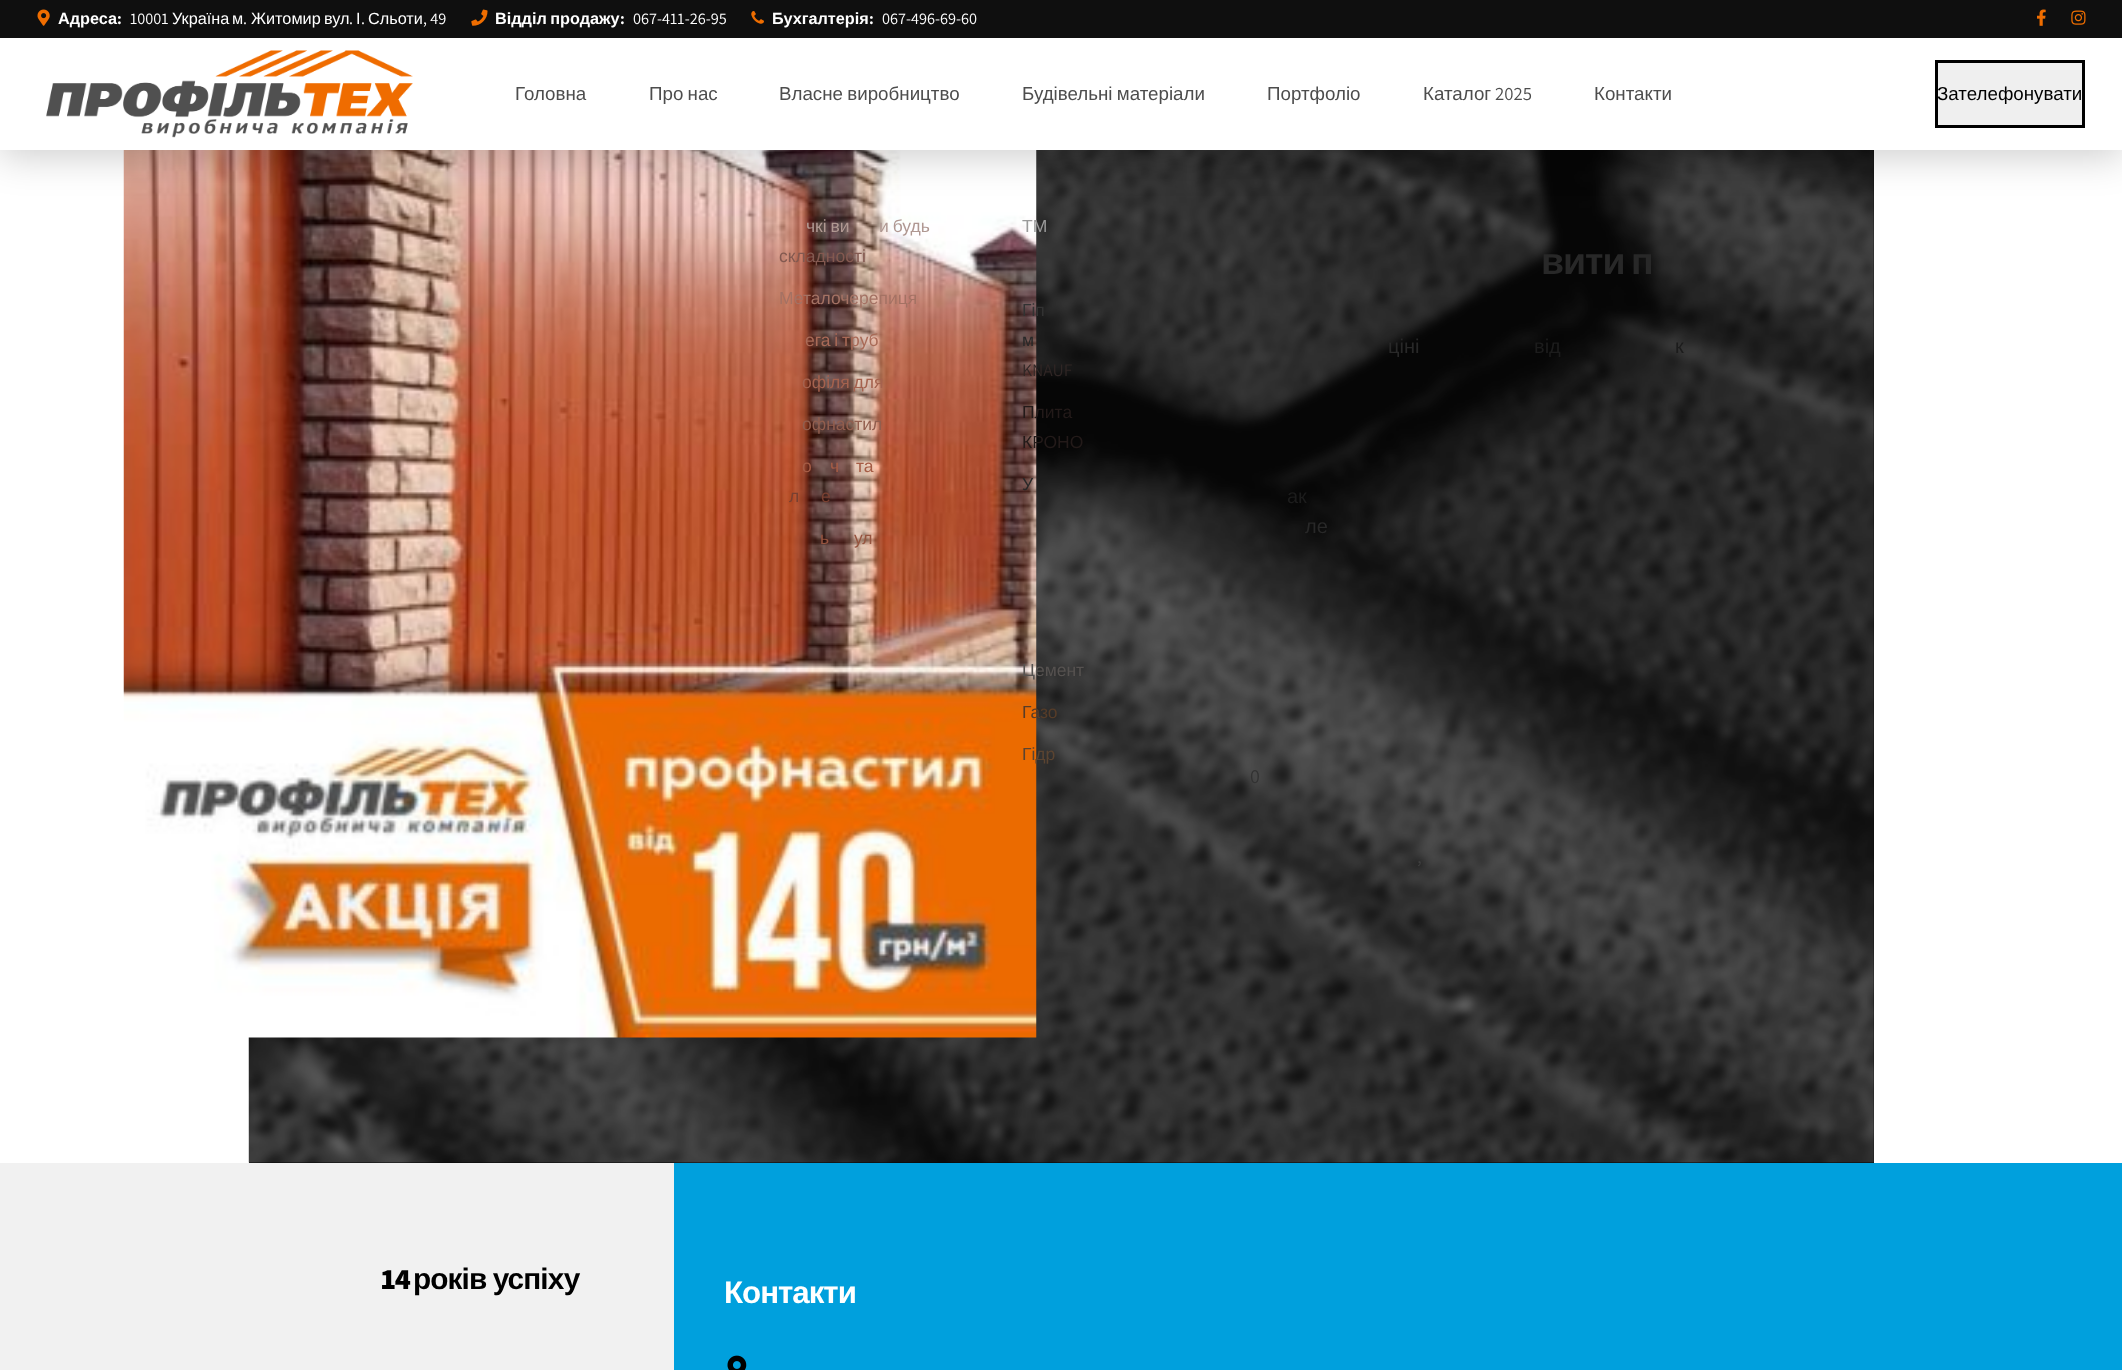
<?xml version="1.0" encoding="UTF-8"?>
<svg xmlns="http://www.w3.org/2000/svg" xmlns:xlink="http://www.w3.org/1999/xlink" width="2122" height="1370">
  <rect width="100%" height="100%" fill="#ffffff" />
  <rect x="249" y="150" width="1625" height="1013" fill="#060606" />
  <image x="248" y="150" width="1626" height="1013" xlink:href="image7.png" />
  <image x="123" y="150" width="914" height="888" xlink:href="image8.png" />
  <rect y="6" width="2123" height="150" fill="#000000" fill-opacity="0.2" filter="blur(19px)" />
  <rect y="38" width="2122" height="112" fill="#ffffff" />
  <rect width="2122" height="38" fill="#0f0f0f" />
  <image x="37" y="9" width="13" height="17" xlink:href="image1.png" />
  <image x="471" y="9" width="17" height="17" xlink:href="image2.png" />
  <image x="751" y="11" width="13" height="13" xlink:href="image3.png" />
  <image x="2037" y="9" width="9" height="17" xlink:href="image4.png" />
  <image x="2071" y="10" width="15" height="15" xlink:href="image5.png" />
  <image x="46" y="50" width="367" height="88" xlink:href="image6.png" />
  <rect x="1936.5" y="61.5" width="147" height="65" fill="#efefef" stroke="#000000" stroke-width="3" />
  <rect x="674" y="1163" width="1448" height="207" fill="#00a0dd" />
  <rect y="1163" width="674" height="207" fill="#f1f1f1" />
  <image x="727" y="1355" width="20" height="15" xlink:href="image9.png" />
  <text x="58" y="24" style="font-family: Liberation Sans; font-size: 16.25px; font-weight: bold; fill: #ffffff">Адреса</text>
  <text x="117" y="24" style="font-family: Assistant; font-size: 16.25px; font-weight: bold; fill: #ffffff">:</text>
  <text x="130" y="24" style="font-family: Assistant; font-size: 16.25px; fill: #ffffff">10001</text>
  <text x="172" y="24" style="font-family: Liberation Sans; font-size: 16.25px; fill: #ffffff">Україна</text>
  <text x="232" y="24" style="font-family: Liberation Sans; font-size: 16.25px; fill: #ffffff">м</text>
  <text x="243" y="24" style="font-family: Assistant; font-size: 16.25px; fill: #ffffff">.</text>
  <text x="251" y="24" style="font-family: Liberation Sans; font-size: 16.25px; fill: #ffffff">Житомир</text>
  <text x="324" y="24" style="font-family: Liberation Sans; font-size: 16.25px; fill: #ffffff">вул</text>
  <text x="349" y="24" style="font-family: Assistant; font-size: 16.25px; fill: #ffffff">.</text>
  <text x="356" y="24" style="font-family: Liberation Sans; font-size: 16.25px; fill: #ffffff">І</text>
  <text x="361" y="24" style="font-family: Assistant; font-size: 16.25px; fill: #ffffff">.</text>
  <text x="368" y="24" style="font-family: Liberation Sans; font-size: 16.25px; fill: #ffffff">Сльоти</text>
  <text x="423" y="24" style="font-family: Assistant; font-size: 16.25px; fill: #ffffff">, 49</text>
  <text x="495" y="24" word-spacing="-1" style="font-family: Liberation Sans; font-size: 16.25px; font-weight: bold; fill: #ffffff">Відділ продажу</text>
  <text x="620" y="24" style="font-family: Assistant; font-size: 16.25px; font-weight: bold; fill: #ffffff">:</text>
  <text x="633" y="24" style="font-family: Assistant; font-size: 16.25px; fill: #ffffff">067-411-26-95</text>
  <text x="772" y="24" style="font-family: Liberation Sans; font-size: 16.25px; font-weight: bold; fill: #ffffff">Бухгалтерія</text>
  <text x="869" y="24" style="font-family: Assistant; font-size: 16.25px; font-weight: bold; fill: #ffffff">:</text>
  <text x="882" y="24" style="font-family: Assistant; font-size: 16.25px; fill: #ffffff">067-496-69-60</text>
  <text x="515" y="100" style="font-family: Liberation Sans; font-size: 18.75px; fill: #4d4d4d">Головна</text>
  <text x="649" y="100" word-spacing="-1" style="font-family: Liberation Sans; font-size: 18.75px; fill: #4d4d4d">Про нас</text>
  <text x="779" y="100" word-spacing="-1" style="font-family: Liberation Sans; font-size: 18.75px; fill: #4d4d4d">Власне виробництво</text>
  <text x="806" y="232" word-spacing="-1" style="font-family: Liberation Sans; font-size: 17.5px; fill: #b09892">чкі ви</text>
  <text x="879" y="232" word-spacing="-1" style="font-family: Liberation Sans; font-size: 17.5px; fill: #b09892">и будь</text>
  <text x="779" y="262" style="font-family: Liberation Sans; font-size: 17.5px; fill: #835950">складності</text>
  <text x="779" y="304" style="font-family: Liberation Sans; font-size: 17.5px; fill: #a47264">Металочерепиця</text>
  <text x="805" y="346" word-spacing="-1" style="font-family: Liberation Sans; font-size: 17.5px; fill: #a96a57">ега і труб</text>
  <text x="802" y="388" word-spacing="-1" style="font-family: Liberation Sans; font-size: 17.5px; fill: #a5624e">офіля для</text>
  <text x="802" y="430" style="font-family: Liberation Sans; font-size: 17.5px; fill: #925e4e">офнастил</text>
  <text x="802" y="472" word-spacing="-1" style="font-family: Liberation Sans; font-size: 17.5px; fill: #a55c45">о</text>
  <text x="830" y="472" word-spacing="-1" style="font-family: Liberation Sans; font-size: 17.5px; fill: #a55c45">ч</text>
  <text x="856" y="472" word-spacing="-1" style="font-family: Liberation Sans; font-size: 17.5px; fill: #a55c45">та</text>
  <text x="789" y="502" style="font-family: Liberation Sans; font-size: 17.5px; fill: #794031">л</text>
  <text x="821" y="502" style="font-family: Liberation Sans; font-size: 17.5px; fill: #794031">е</text>
  <text x="820" y="544" word-spacing="-1" style="font-family: Liberation Sans; font-size: 17.5px; fill: #96543f">ь</text>
  <text x="854" y="544" word-spacing="-1" style="font-family: Liberation Sans; font-size: 17.5px; fill: #96543f">ул</text>
  <text x="1022" y="100" word-spacing="-1" style="font-family: Liberation Sans; font-size: 18.75px; fill: #4d4d4d">Будівельні матеріали</text>
  <text x="1022" y="232" style="font-family: Liberation Sans; font-size: 17.5px; fill: #9a9a9a">ТМ</text>
  <text x="1022" y="316" word-spacing="-1" style="font-family: Liberation Sans; font-size: 17.5px; fill: #323232">Гіп</text>
  <text x="1022" y="346" word-spacing="-1" style="font-family: Liberation Sans; font-size: 17.5px; fill: #282828">м</text>
  <text x="1022" y="376" style="font-family: Assistant; font-size: 17.5px; fill: #302625">KNAUF</text>
  <text x="1022" y="418" style="font-family: Liberation Sans; font-size: 17.5px; fill: #231a19">Плита</text>
  <text x="1022" y="448" style="font-family: Liberation Sans; font-size: 17.5px; fill: #231a19">КРОНО</text>
  <text x="1022" y="490" style="font-family: Liberation Sans; font-size: 17.5px; fill: #282828">У</text>
  <text x="1022" y="676" style="font-family: Liberation Sans; font-size: 17.5px; fill: #565250">Цемент</text>
  <text x="1022" y="718" style="font-family: Liberation Sans; font-size: 17.5px; fill: #563c28">Газо</text>
  <text x="1022" y="760" style="font-family: Liberation Sans; font-size: 17.5px; fill: #5b4431">Гідр</text>
  <text x="1267" y="100" style="font-family: Liberation Sans; font-size: 18.75px; fill: #4d4d4d">Портфоліо</text>
  <text x="1423" y="100" style="font-family: Liberation Sans; font-size: 18.75px; fill: #4d4d4d">Каталог</text>
  <text x="1495" y="100" style="font-family: Assistant; font-size: 18.75px; fill: #4d4d4d">2025</text>
  <text x="1594" y="100" style="font-family: Liberation Sans; font-size: 18.75px; fill: #4d4d4d">Контакти</text>
  <text x="1937" y="100" style="font-family: Liberation Sans; font-size: 18.75px; fill: #000000">Зателефонувати</text>
  <text x="1541" y="274" word-spacing="-3" style="font-family: Liberation Sans; font-size: 37.5px; font-weight: bold; letter-spacing: -1px; fill: #282828">вити п</text>
  <text x="1388" y="353" word-spacing="-2" style="font-family: Liberation Sans; font-size: 20px; fill: #282828">ціні</text>
  <text x="1534" y="353" word-spacing="-1" style="font-family: Liberation Sans; font-size: 20px; fill: #1c1c1c">від</text>
  <text x="1675" y="353" word-spacing="-1" style="font-family: Liberation Sans; font-size: 20px; fill: #1c1c1c">к</text>
  <text x="1287" y="503" word-spacing="-2" style="font-family: Liberation Sans; font-size: 20px; fill: #1c1c1c">ак</text>
  <text x="1305" y="533" word-spacing="-2" style="font-family: Liberation Sans; font-size: 20px; fill: #282828">ле</text>
  <text x="1250" y="783" style="font-family: Assistant; font-size: 20px; fill: #323232">0</text>
  <text x="1417" y="863" style="font-family: Assistant; font-size: 20px; fill: #3f3f3f">,</text>
  <text x="381" y="1289" style="font-family: Assistant; font-size: 29.75px; font-weight: 800; letter-spacing: -0.9px; fill: #000000">14</text>
  <text x="413" y="1289" word-spacing="-1" style="font-family: Liberation Sans; font-size: 29.75px; font-weight: bold; letter-spacing: -0.9px; fill: #000000">років успіху</text>
  <text x="724" y="1303" style="font-family: Liberation Sans; font-size: 31.25px; font-weight: bold; letter-spacing: -1px; fill: #ffffff">Контакти</text>
</svg>
